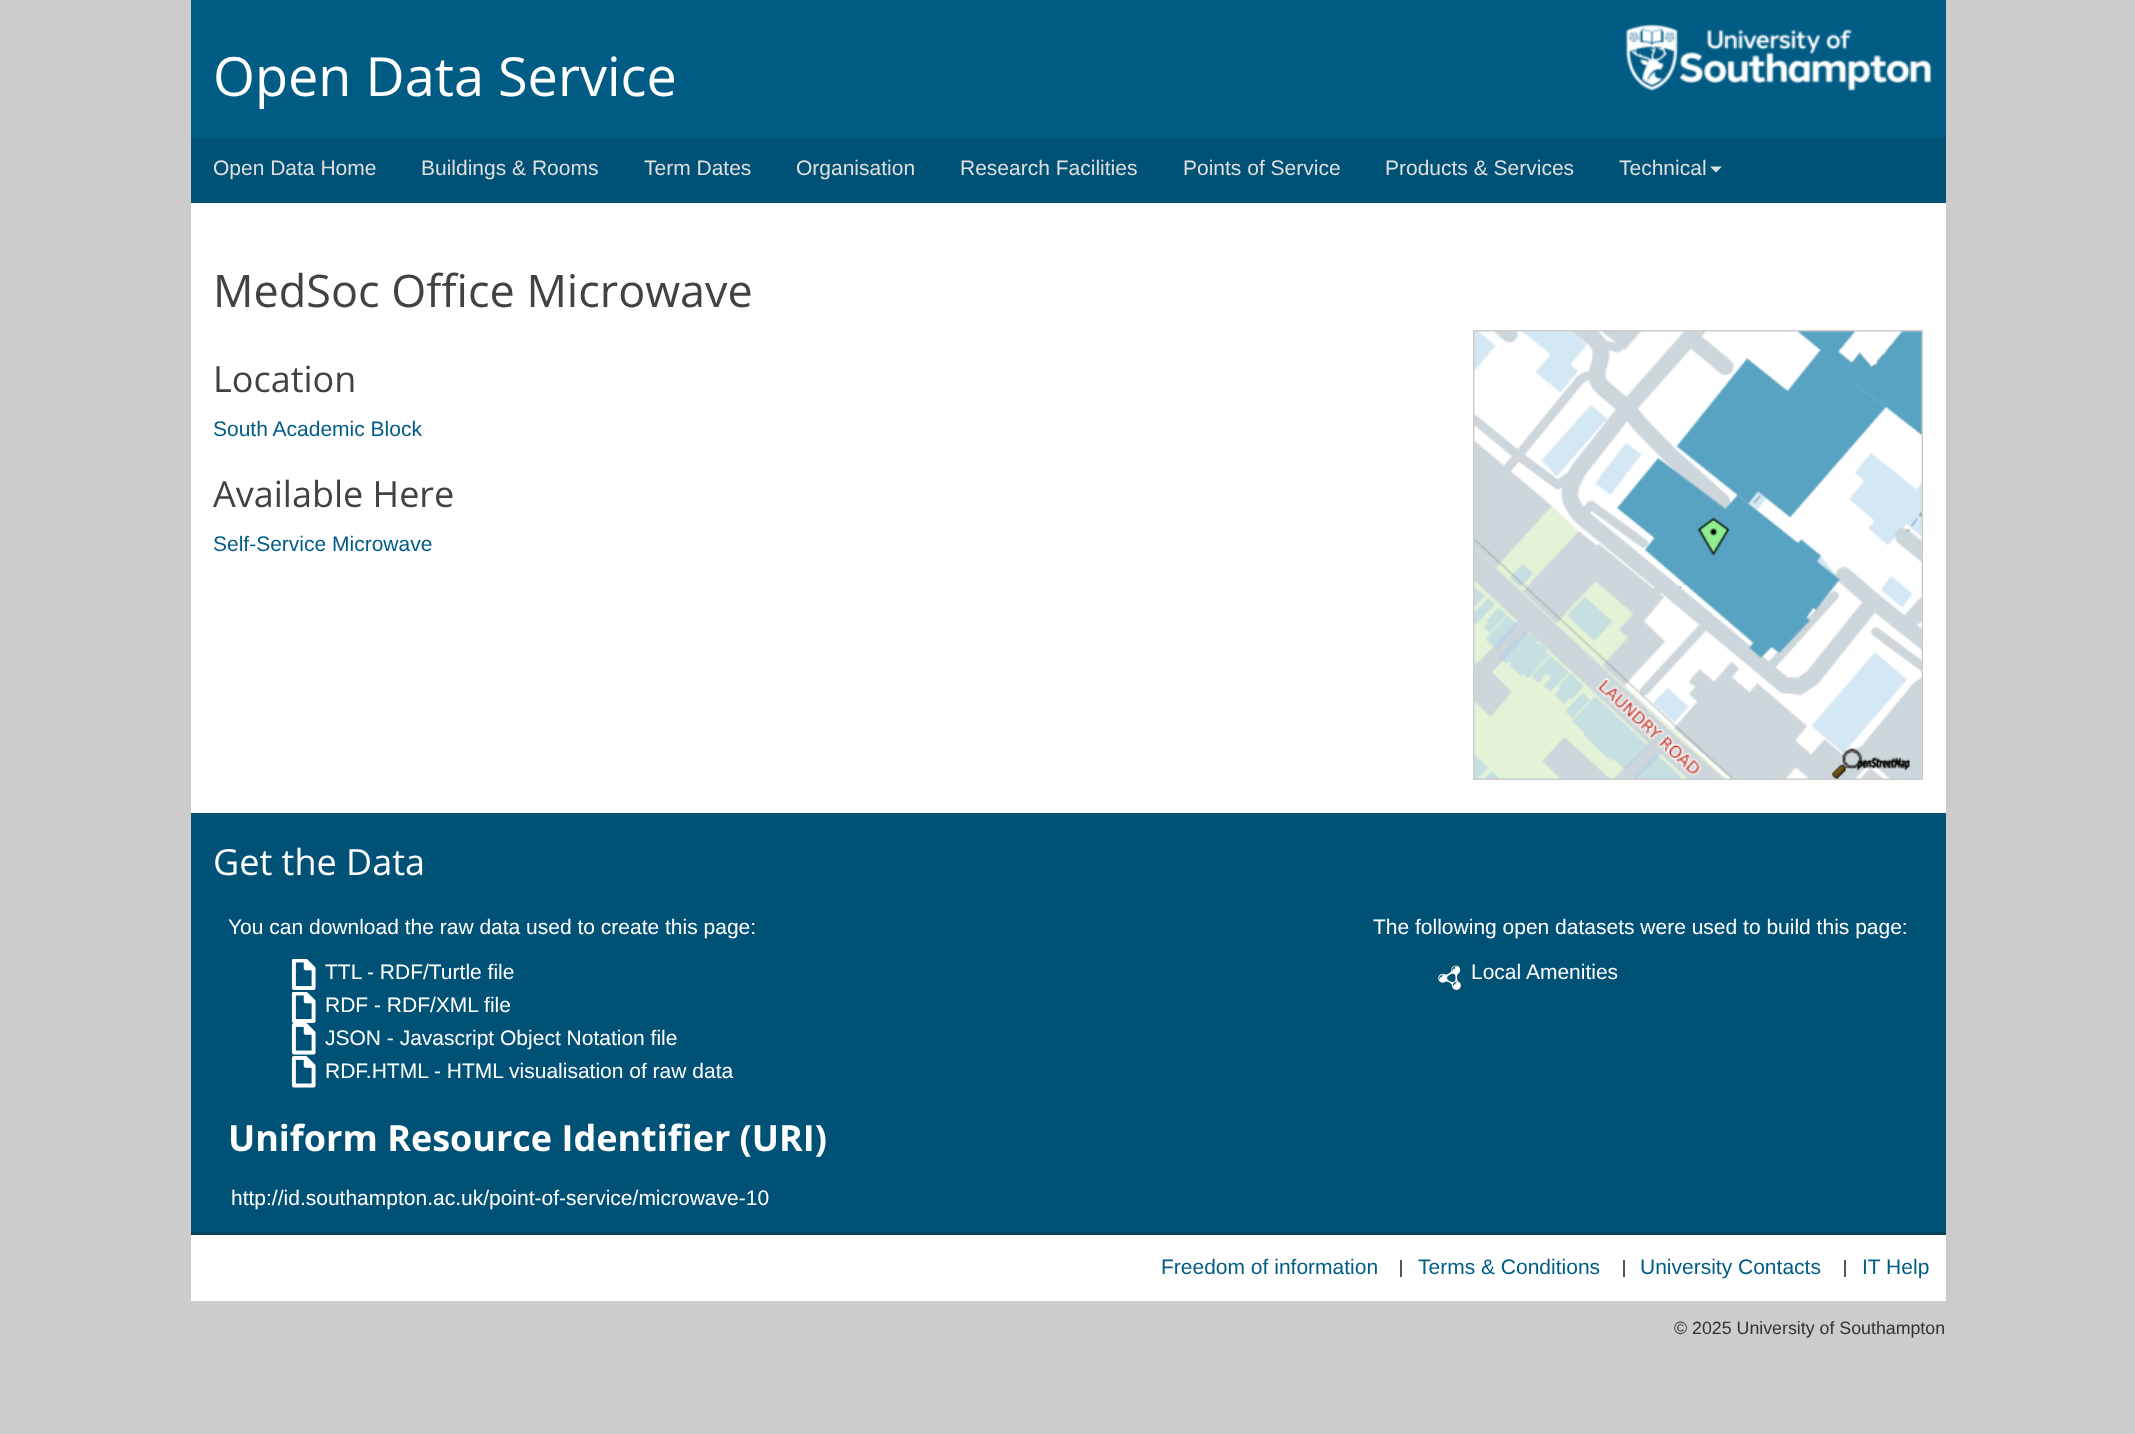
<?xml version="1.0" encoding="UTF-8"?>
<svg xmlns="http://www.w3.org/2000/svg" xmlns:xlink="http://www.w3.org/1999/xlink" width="2135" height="1434">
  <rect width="100%" height="100%" fill="#cccccc" />
  <rect x="191" width="1755" height="138" fill="#005c85" />
  <image x="1625" y="24" width="307" height="68" xlink:href="image1.png" />
  <rect x="191" y="138" width="1755" height="65" fill="#005176" />
  <path d="M 1710 166.5 h 12 l -6 6 z" fill="#dfdfdf" />
  <rect x="191" y="203" width="1755" height="610" fill="#ffffff" />
  <rect x="1474" y="331" width="448" height="448" fill="none" stroke="#cccccc" stroke-width="2" />
  <image x="1474" y="331" width="448" height="448" xlink:href="image2.png" />
  <rect x="191" y="813" width="1755" height="419" fill="#005176" />
  <image x="291" y="959" width="25" height="31" xlink:href="image3.png" />
  <image x="291" y="992" width="25" height="31" xlink:href="image3.png" />
  <image x="291" y="1023" width="25" height="32" xlink:href="image4.png" />
  <image x="291" y="1056" width="25" height="32" xlink:href="image4.png" />
  <image x="1438" y="965" width="23" height="25" xlink:href="image5.png" />
  <rect x="191" y="1235" width="1755" height="66" fill="#ffffff" />
  <rect x="191" y="1232" width="1755" height="3" fill="#014359" />
  <rect x="1400" y="1260" width="2" height="17" fill="#555555" />
  <rect x="1623" y="1260" width="2" height="17" fill="#555555" />
  <rect x="1844" y="1260" width="2" height="17" fill="#555555" />
  <text x="213" y="96" style="font-family: Open Sans; font-size: 54px; fill: #ffffff">Open Data Service</text>
  <text x="213" y="175" style="font-family: Liberation Sans; font-size: 21px; fill: #dfdfdf">Open Data Home</text>
  <text x="421" y="175" style="font-family: Liberation Sans; font-size: 21px; fill: #dfdfdf">Buildings &amp; Rooms</text>
  <text x="644" y="175" style="font-family: Liberation Sans; font-size: 21px; fill: #dfdfdf">Term Dates</text>
  <text x="796" y="175" style="font-family: Liberation Sans; font-size: 21px; fill: #dfdfdf">Organisation</text>
  <text x="960" y="175" style="font-family: Liberation Sans; font-size: 21px; fill: #dfdfdf">Research Facilities</text>
  <text x="1183" y="175" style="font-family: Liberation Sans; font-size: 21px; fill: #dfdfdf">Points of Service</text>
  <text x="1385" y="175" style="font-family: Liberation Sans; font-size: 21px; fill: #dfdfdf">Products &amp; Services</text>
  <text x="1619" y="175" style="font-family: Liberation Sans; font-size: 21px; fill: #dfdfdf">Technical</text>
  <text x="213" y="307" style="font-family: Open Sans; font-size: 45px; fill: #424242">MedSoc Office Microwave</text>
  <text x="213" y="392" style="font-family: Open Sans; font-size: 36px; fill: #424242">Location</text>
  <text x="213" y="436" style="font-family: Liberation Sans; font-size: 21px; fill: #005c85">South Academic Block</text>
  <text x="213" y="507" style="font-family: Open Sans; font-size: 36px; fill: #424242">Available Here</text>
  <text x="213" y="551" style="font-family: Liberation Sans; font-size: 21px; fill: #005c85">Self-Service Microwave</text>
  <text x="213" y="875" style="font-family: Open Sans; font-size: 36px; fill: #ffffff">Get the Data</text>
  <text x="228" y="934" style="font-family: Liberation Sans; font-size: 21px; fill: #ffffff">You can download the raw data used to create this page:</text>
  <text x="325" y="979" style="font-family: Liberation Sans; font-size: 21px; fill: #ffffff">TTL</text>
  <text x="367" y="979" style="font-family: Liberation Sans; font-size: 21px; fill: #ffffff">- RDF/Turtle file</text>
  <text x="325" y="1012" style="font-family: Liberation Sans; font-size: 21px; fill: #ffffff">RDF - RDF/XML file</text>
  <text x="325" y="1045" style="font-family: Liberation Sans; font-size: 21px; fill: #ffffff">JSON - Javascript Object Notation file</text>
  <text x="325" y="1078" style="font-family: Liberation Sans; font-size: 21px; fill: #ffffff">RDF.HTML</text>
  <text x="434" y="1078" style="font-family: Liberation Sans; font-size: 21px; fill: #ffffff">- HTML visualisation of raw data</text>
  <text x="228" y="1151" style="font-family: Open Sans; font-size: 36px; font-weight: bold; fill: #ffffff">Uniform Resource Identifier (URI)</text>
  <text x="231" y="1205" style="font-family: Liberation Sans; font-size: 21px; fill: #ffffff">http://id.southampton.ac.uk/point-of-service/microwave-10</text>
  <text x="1373" y="934" style="font-family: Liberation Sans; font-size: 21px; fill: #ffffff">The following open datasets were used to build this page:</text>
  <text x="1471" y="979" style="font-family: Liberation Sans; font-size: 21px; fill: #ffffff">Local Amenities</text>
  <text x="1161" y="1274" style="font-family: Liberation Sans; font-size: 21px; fill: #005c85">Freedom of information</text>
  <text x="1418" y="1274" style="font-family: Liberation Sans; font-size: 21px; fill: #005c85">Terms &amp; Conditions</text>
  <text x="1640" y="1274" style="font-family: Liberation Sans; font-size: 21px; fill: #005c85">University Contacts</text>
  <text x="1862" y="1274" style="font-family: Liberation Sans; font-size: 21px; fill: #005c85">IT Help</text>
  <text x="1674" y="1334" style="font-family: Liberation Sans; font-size: 17.8px; fill: #333333">© 2025 University of Southampton</text>
</svg>
